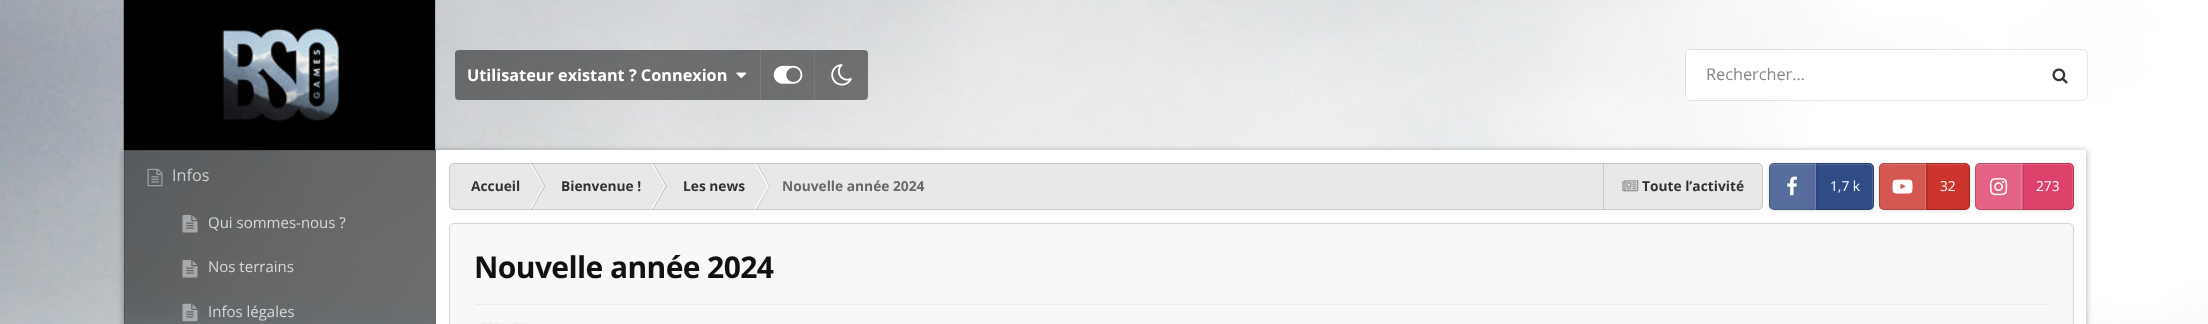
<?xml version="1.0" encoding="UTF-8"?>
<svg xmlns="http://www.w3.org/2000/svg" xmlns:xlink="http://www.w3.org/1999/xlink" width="2208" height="324">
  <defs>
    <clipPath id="clip1"><rect x="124" y="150" width="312" height="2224" /></clipPath>
    <clipPath id="clip2"><path d="M 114 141 h 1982 v 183 h -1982 z m 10 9 h 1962 v 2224 h -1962 z" clip-rule="evenodd" /></clipPath>
  </defs>
  <rect width="100%" height="100%" fill="#ffffff" />
  <image x="0" y="0" width="2208" height="324" xlink:href="image1.png" />
  <g clip-path="url(#clip1)">
    <rect x="99" y="125" width="362" height="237" fill="#cde4f2" filter="blur(12.5px)" />
  </g>
  <rect x="435" width="1" height="150" fill="#1e1e1e" fill-opacity="0.15" />
  <image x="123" y="0" width="312" height="150" xlink:href="image2.png" />
  <rect x="455" y="50" width="413" height="50" rx="4" fill="#000000" fill-opacity="0.5" />
  <image x="736" y="72" width="11" height="7" xlink:href="image3.png" />
  <rect x="760" y="50" width="1" height="50" fill="#ffffff" fill-opacity="0.1" />
  <image x="773" y="65" width="30" height="19" xlink:href="image4.png" />
  <rect x="814" y="50" width="1" height="50" fill="#ffffff" fill-opacity="0.1" />
  <image x="831" y="64" width="21" height="22" xlink:href="image5.png" />
  <rect x="1685.5" y="49.5" width="402" height="51" rx="5.5" fill="none" stroke="#000000" stroke-opacity="0.1" />
  <rect x="1686" y="50" width="400" height="50" rx="5" fill="#ffffff" />
  <image x="2052" y="68" width="16" height="16" xlink:href="image6.png" />
  <image x="124" y="150" width="312" height="174" xlink:href="image7.png" />
  <g clip-path="url(#clip2)">
    <rect x="124" y="151" width="1962" height="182" fill="#000000" fill-opacity="0.35" filter="blur(3px)" />
  </g>
  <rect x="124" y="150" width="312" height="174" fill="#000000" fill-opacity="0.5" />
  <rect x="124.5" y="150.5" width="1961" height="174" fill="none" stroke="#000000" stroke-opacity="0.15" />
  <image x="147" y="168" width="16" height="19" xlink:href="image8.png" />
  <image x="182" y="215" width="16" height="18" xlink:href="image9.png" />
  <image x="182" y="260" width="16" height="18" xlink:href="image10.png" />
  <image x="182" y="303" width="16" height="19" xlink:href="image11.png" />
  <rect x="436" y="150" width="1650" height="174" fill="#ffffff" />
  <rect x="449" y="163" width="1314" height="47" rx="5" fill="#e8e8e8" />
  <path d="M 531 163 h -1.5 l 13.5 23 h 1 z" fill="#ffffff" />
  <path d="M 532 163 h -1 l 13 23 h 1.5 z" fill="#4b4b4b" fill-opacity="0.2" />
  <path d="M 529 210 h 1.5 l 13.5 -24 h -1 z" fill="#ffffff" />
  <path d="M 530.5 210 h 1 l 14 -24 h -1.5 z" fill="#4b4b4b" fill-opacity="0.2" />
  <path d="M 652.5 163 h -1.5 l 13.5 23 h 1 z" fill="#ffffff" />
  <path d="M 653.5 163 h -1 l 13 23 h 1.5 z" fill="#4b4b4b" fill-opacity="0.2" />
  <path d="M 650.5 210 h 1.5 l 13.5 -24 h -1 z" fill="#ffffff" />
  <path d="M 652 210 h 1 l 14 -24 h -1.5 z" fill="#4b4b4b" fill-opacity="0.2" />
  <path d="M 756 163 h -1.5 l 13 23 h 1.5 z" fill="#ffffff" />
  <path d="M 757 163 h -1 l 13 23 h 1 z" fill="#4b4b4b" fill-opacity="0.2" />
  <path d="M 754 210 h 1.5 l 13.5 -24 h -1.5 z" fill="#ffffff" />
  <path d="M 755.5 210 h 1 l 13.5 -24 h -1 z" fill="#4b4b4b" fill-opacity="0.2" />
  <rect x="1603" y="163" width="1" height="47" fill="#c9c9c9" />
  <image x="1622" y="180" width="17" height="12" xlink:href="image12.png" />
  <rect x="449.5" y="163.5" width="1313" height="46" rx="4.5" fill="none" stroke="#4b4b4b" stroke-opacity="0.2" />
  <rect x="1769" y="164" width="105" height="47" rx="5" fill="#000000" fill-opacity="0.1" filter="blur(2px)" />
  <rect x="1769" y="163" width="105" height="47" rx="5" fill="#304c87" />
  <rect x="1816" y="163" width="2" height="47" fill="#2b447a" />
  <path d="M 1774 163 h 42 v 47 h -42 c -3 0 -5 -2 -5 -5 v -37 c 0 -3 2 -5 5 -5 z" fill="#ffffff" fill-opacity="0.18" />
  <rect x="1815" y="163" width="1" height="47" fill="#6f82ab" />
  <image x="1787" y="176" width="10" height="20" xlink:href="image13.png" />
  <rect x="449" y="223" width="1625" height="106" rx="5" fill="#f8f8f8" />
  <rect x="449.5" y="223.5" width="1624" height="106" rx="4.5" fill="none" stroke="#4b4b4b" stroke-opacity="0.2" />
  <rect x="475" y="304" width="1573" height="1" fill="#eaeaea" />
  <image x="479" y="323" width="47" height="1" xlink:href="image16.png" />
  <text x="467" y="81" style="font-family: Open Sans; font-size: 16.25px; font-weight: bold; fill: #ffffff">Utilisateur existant ? Connexion</text>
  <text x="1706" y="80" style="font-family: Open Sans; font-size: 16.25px; fill: #858585">Rechercher…</text>
  <text x="172" y="181" style="font-family: Open Sans; font-size: 16.25px; fill: #cecfcf">Infos</text>
  <text x="208" y="228" style="font-family: Open Sans; font-size: 15px; fill: #d8d9d9">Qui sommes-nous ?</text>
  <text x="208" y="272" style="font-family: Open Sans; font-size: 15px; fill: #d8d9d9">Nos terrains</text>
  <text x="208" y="317" style="font-family: Open Sans; font-size: 15px; fill: #d8d9d9">Infos légales</text>
  <text x="471" y="191" style="font-family: Open Sans; font-size: 13.75px; font-weight: bold; fill: #313131">Accueil</text>
  <text x="561" y="191" style="font-family: Open Sans; font-size: 13.75px; font-weight: bold; fill: #313131">Bienvenue !</text>
  <text x="683" y="191" style="font-family: Open Sans; font-size: 13.75px; font-weight: bold; fill: #313131">Les news</text>
  <text x="782" y="191" style="font-family: Open Sans; font-size: 13.75px; font-weight: bold; fill: #686868">Nouvelle année 2024</text>
  <text x="1642" y="191" style="font-family: Open Sans; font-size: 13.75px; font-weight: bold; fill: #313131">Toute l’activité</text>
  <text x="1830" y="191" style="font-family: Open Sans; font-size: 13.75px; fill: #ffffff">1,7 k</text>
  <path d="M 1774 165 c -2 0 -4 2 -4 4 v -1 c 0 -2 2 -4 4 -4 h 95 c 2 0 4 2 4 4 v 37 c 0 1 -1 2 -1 3 v -33 c 0 -1 1 -10 -3 -10 z" fill="#ffffff" fill-opacity="0.15" />
  <rect x="1769.5" y="163.5" width="104" height="46" rx="4.5" fill="none" stroke="#000000" stroke-opacity="0.2" />
  <rect x="1879" y="164" width="91" height="47" rx="5" fill="#000000" fill-opacity="0.1" filter="blur(2px)" />
  <rect x="1879" y="163" width="91" height="47" rx="5" fill="#cc332d" />
  <rect x="1926" y="163" width="2" height="47" fill="#b82e29" />
  <path d="M 1884 163 h 42 v 47 h -42 c -3 0 -5 -2 -5 -5 v -37 c 0 -3 2 -5 5 -5 z" fill="#ffffff" fill-opacity="0.18" />
  <rect x="1925" y="163" width="1" height="47" fill="#db716d" />
  <image x="1892" y="179" width="21" height="15" xlink:href="image14.png" />
  <path d="M 1884 165 c -2 0 -4 2 -4 4 c 0 -8 13 -5 18 -5 h 54 c 4 0 17 -3 17 5 c 0 -2 -2 -4 -4 -4 z" fill="#ffffff" fill-opacity="0.15" />
  <rect x="1879.5" y="163.5" width="90" height="46" rx="4.5" fill="none" stroke="#000000" stroke-opacity="0.2" />
  <text x="1940" y="191" style="font-family: Open Sans; font-size: 13.75px; fill: #ffffff">32</text>
  <rect x="1975" y="164" width="99" height="47" rx="5" fill="#000000" fill-opacity="0.1" filter="blur(2px)" />
  <rect x="1975" y="163" width="99" height="47" rx="5" fill="#de416a" />
  <rect x="2022" y="163" width="2" height="47" fill="#c83b5f" />
  <path d="M 1980 163 h 43 v 47 h -43 c -3 0 -5 -2 -5 -5 v -37 c 0 -3 2 -5 5 -5 z" fill="#ffffff" fill-opacity="0.18" />
  <rect x="2021" y="163" width="1" height="47" fill="#e87b97" />
  <image x="1990" y="178" width="18" height="18" xlink:href="image15.png" />
  <text x="2036" y="191" style="font-family: Open Sans; font-size: 13.75px; fill: #ffffff">273</text>
  <path d="M 1980 165 c -2 0 -4 2 -4 4 v -1 c 0 -2 2 -4 4 -4 h 89 c 2 0 4 2 4 4 v 37 c 0 1 -1 2 -1 3 v -33 c 0 -1 1 -10 -3 -10 z" fill="#ffffff" fill-opacity="0.15" />
  <rect x="1975.5" y="163.5" width="98" height="46" rx="4.5" fill="none" stroke="#000000" stroke-opacity="0.2" />
  <text x="474" y="278" style="font-family: Open Sans; font-size: 30px; font-weight: bold; letter-spacing: -0.6px; fill: #111111">Nouvelle année 2024</text>
</svg>
